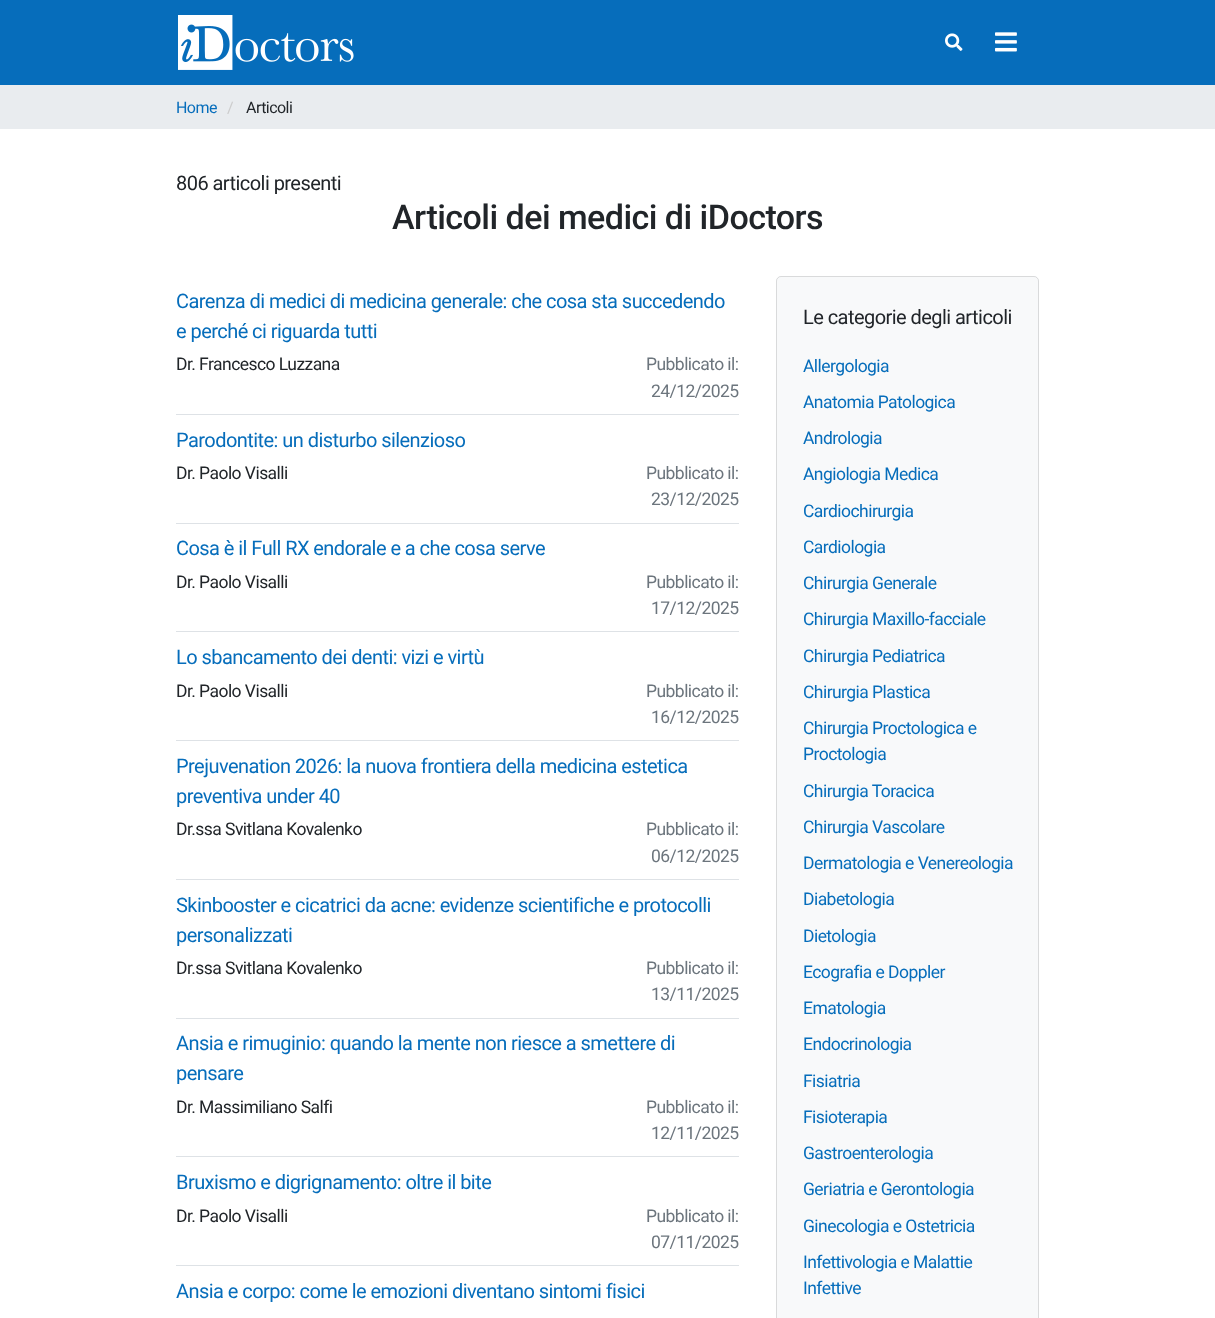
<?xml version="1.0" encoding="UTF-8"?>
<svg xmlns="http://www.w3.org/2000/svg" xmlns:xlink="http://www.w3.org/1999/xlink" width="1215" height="1318">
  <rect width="100%" height="100%" fill="#ffffff" />
  <rect width="1215" height="85" fill="#066dbb" />
  <image x="178" y="15" width="176" height="55" xlink:href="image1.png" />
  <image x="945" y="33" width="18" height="18" xlink:href="image2.png" />
  <image x="995" y="32" width="22" height="20" xlink:href="image3.png" />
  <rect y="85" width="1215" height="44" fill="#e9ecef" />
  <rect x="176" y="414" width="563" height="1" fill="#dee2e6" />
  <rect x="176" y="523" width="563" height="1" fill="#dee2e6" />
  <rect x="176" y="631" width="563" height="1" fill="#dee2e6" />
  <rect x="176" y="740" width="563" height="1" fill="#dee2e6" />
  <rect x="176" y="879" width="563" height="1" fill="#dee2e6" />
  <rect x="176" y="1018" width="563" height="1" fill="#dee2e6" />
  <rect x="176" y="1156" width="563" height="1" fill="#dee2e6" />
  <rect x="176" y="1265" width="563" height="1" fill="#dee2e6" />
  <rect x="776" y="276" width="263" height="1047" rx="5" fill="#f8f9fa" />
  <rect x="776.5" y="276.5" width="262" height="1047" rx="4.5" fill="none" stroke="#000000" stroke-opacity="0.12" />
  <text x="176" y="113" style="font-family: Roboto; font-size: 16px; letter-spacing: -0.55px; fill: #066dbb">Home</text>
  <text x="227" y="113" style="font-family: Roboto; font-size: 16px; letter-spacing: -0.55px; fill: #cccccc">/</text>
  <text x="246" y="113" style="font-family: Roboto; font-size: 16px; letter-spacing: -0.55px; fill: #212529">Articoli</text>
  <text x="176" y="190" style="font-family: Roboto; font-size: 20px; letter-spacing: -0.55px; fill: #212529">806 articoli presenti</text>
  <text x="392" y="229" style="font-family: Roboto; font-size: 34.1px; font-weight: 500; letter-spacing: -0.55px; fill: #212529">Articoli dei medici di iDoctors</text>
  <text x="176" y="308" style="font-family: Roboto; font-size: 20px; letter-spacing: -0.55px; fill: #066dbb">Carenza di medici di medicina generale: che cosa sta succedendo</text>
  <text x="176" y="338" style="font-family: Roboto; font-size: 20px; letter-spacing: -0.55px; fill: #066dbb">e perché ci riguarda tutti</text>
  <text x="176" y="370" style="font-family: Roboto; font-size: 17.5px; letter-spacing: -0.55px; fill: #212529">Dr. Francesco Luzzana</text>
  <text x="646" y="370" style="font-family: Roboto; font-size: 17.5px; letter-spacing: -0.55px; fill: #6c757d">Pubblicato il:</text>
  <text x="651" y="397" style="font-family: Roboto; font-size: 17.5px; letter-spacing: -0.55px; fill: #6c757d">24/12/2025</text>
  <text x="176" y="447" style="font-family: Roboto; font-size: 20px; letter-spacing: -0.55px; fill: #066dbb">Parodontite: un disturbo silenzioso</text>
  <text x="176" y="479" style="font-family: Roboto; font-size: 17.5px; letter-spacing: -0.55px; fill: #212529">Dr. Paolo Visalli</text>
  <text x="646" y="479" style="font-family: Roboto; font-size: 17.5px; letter-spacing: -0.55px; fill: #6c757d">Pubblicato il:</text>
  <text x="651" y="505" style="font-family: Roboto; font-size: 17.5px; letter-spacing: -0.55px; fill: #6c757d">23/12/2025</text>
  <text x="176" y="555" style="font-family: Roboto; font-size: 20px; letter-spacing: -0.55px; fill: #066dbb">Cosa è il Full RX endorale e a che cosa serve</text>
  <text x="176" y="588" style="font-family: Roboto; font-size: 17.5px; letter-spacing: -0.55px; fill: #212529">Dr. Paolo Visalli</text>
  <text x="646" y="588" style="font-family: Roboto; font-size: 17.5px; letter-spacing: -0.55px; fill: #6c757d">Pubblicato il:</text>
  <text x="651" y="614" style="font-family: Roboto; font-size: 17.5px; letter-spacing: -0.55px; fill: #6c757d">17/12/2025</text>
  <text x="176" y="664" style="font-family: Roboto; font-size: 20px; letter-spacing: -0.55px; fill: #066dbb">Lo sbancamento dei denti: vizi e virtù</text>
  <text x="176" y="697" style="font-family: Roboto; font-size: 17.5px; letter-spacing: -0.55px; fill: #212529">Dr. Paolo Visalli</text>
  <text x="646" y="697" style="font-family: Roboto; font-size: 17.5px; letter-spacing: -0.55px; fill: #6c757d">Pubblicato il:</text>
  <text x="651" y="723" style="font-family: Roboto; font-size: 17.5px; letter-spacing: -0.55px; fill: #6c757d">16/12/2025</text>
  <text x="176" y="773" style="font-family: Roboto; font-size: 20px; letter-spacing: -0.55px; fill: #066dbb">Prejuvenation 2026: la nuova frontiera della medicina estetica</text>
  <text x="176" y="803" style="font-family: Roboto; font-size: 20px; letter-spacing: -0.55px; fill: #066dbb">preventiva under 40</text>
  <text x="176" y="835" style="font-family: Roboto; font-size: 17.5px; letter-spacing: -0.55px; fill: #212529">Dr.ssa Svitlana Kovalenko</text>
  <text x="646" y="835" style="font-family: Roboto; font-size: 17.5px; letter-spacing: -0.55px; fill: #6c757d">Pubblicato il:</text>
  <text x="651" y="862" style="font-family: Roboto; font-size: 17.5px; letter-spacing: -0.55px; fill: #6c757d">06/12/2025</text>
  <text x="176" y="912" style="font-family: Roboto; font-size: 20px; letter-spacing: -0.55px; fill: #066dbb">Skinbooster e cicatrici da acne: evidenze scientifiche e protocolli</text>
  <text x="176" y="942" style="font-family: Roboto; font-size: 20px; letter-spacing: -0.55px; fill: #066dbb">personalizzati</text>
  <text x="176" y="974" style="font-family: Roboto; font-size: 17.5px; letter-spacing: -0.55px; fill: #212529">Dr.ssa Svitlana Kovalenko</text>
  <text x="646" y="974" style="font-family: Roboto; font-size: 17.5px; letter-spacing: -0.55px; fill: #6c757d">Pubblicato il:</text>
  <text x="651" y="1000" style="font-family: Roboto; font-size: 17.5px; letter-spacing: -0.55px; fill: #6c757d">13/11/2025</text>
  <text x="176" y="1050" style="font-family: Roboto; font-size: 20px; letter-spacing: -0.55px; fill: #066dbb">Ansia e rimuginio: quando la mente non riesce a smettere di</text>
  <text x="176" y="1080" style="font-family: Roboto; font-size: 20px; letter-spacing: -0.55px; fill: #066dbb">pensare</text>
  <text x="176" y="1113" style="font-family: Roboto; font-size: 17.5px; letter-spacing: -0.55px; fill: #212529">Dr. Massimiliano Salfi</text>
  <text x="646" y="1113" style="font-family: Roboto; font-size: 17.5px; letter-spacing: -0.55px; fill: #6c757d">Pubblicato il:</text>
  <text x="651" y="1139" style="font-family: Roboto; font-size: 17.5px; letter-spacing: -0.55px; fill: #6c757d">12/11/2025</text>
  <text x="176" y="1189" style="font-family: Roboto; font-size: 20px; letter-spacing: -0.55px; fill: #066dbb">Bruxismo e digrignamento: oltre il bite</text>
  <text x="176" y="1222" style="font-family: Roboto; font-size: 17.5px; letter-spacing: -0.55px; fill: #212529">Dr. Paolo Visalli</text>
  <text x="646" y="1222" style="font-family: Roboto; font-size: 17.5px; letter-spacing: -0.55px; fill: #6c757d">Pubblicato il:</text>
  <text x="651" y="1248" style="font-family: Roboto; font-size: 17.5px; letter-spacing: -0.55px; fill: #6c757d">07/11/2025</text>
  <text x="176" y="1298" style="font-family: Roboto; font-size: 20px; letter-spacing: -0.55px; fill: #066dbb">Ansia e corpo: come le emozioni diventano sintomi fisici</text>
  <text x="803" y="324" style="font-family: Roboto; font-size: 20px; letter-spacing: -0.55px; fill: #212529">Le categorie degli articoli</text>
  <text x="803" y="372" style="font-family: Roboto; font-size: 17.5px; letter-spacing: -0.55px; fill: #066dbb">Allergologia</text>
  <text x="803" y="408" style="font-family: Roboto; font-size: 17.5px; letter-spacing: -0.55px; fill: #066dbb">Anatomia Patologica</text>
  <text x="803" y="444" style="font-family: Roboto; font-size: 17.5px; letter-spacing: -0.55px; fill: #066dbb">Andrologia</text>
  <text x="803" y="480" style="font-family: Roboto; font-size: 17.5px; letter-spacing: -0.55px; fill: #066dbb">Angiologia Medica</text>
  <text x="803" y="517" style="font-family: Roboto; font-size: 17.5px; letter-spacing: -0.55px; fill: #066dbb">Cardiochirurgia</text>
  <text x="803" y="553" style="font-family: Roboto; font-size: 17.5px; letter-spacing: -0.55px; fill: #066dbb">Cardiologia</text>
  <text x="803" y="589" style="font-family: Roboto; font-size: 17.5px; letter-spacing: -0.55px; fill: #066dbb">Chirurgia Generale</text>
  <text x="803" y="625" style="font-family: Roboto; font-size: 17.5px; letter-spacing: -0.55px; fill: #066dbb">Chirurgia Maxillo-facciale</text>
  <text x="803" y="662" style="font-family: Roboto; font-size: 17.5px; letter-spacing: -0.55px; fill: #066dbb">Chirurgia Pediatrica</text>
  <text x="803" y="698" style="font-family: Roboto; font-size: 17.5px; letter-spacing: -0.55px; fill: #066dbb">Chirurgia Plastica</text>
  <text x="803" y="734" style="font-family: Roboto; font-size: 17.5px; letter-spacing: -0.55px; fill: #066dbb">Chirurgia Proctologica e</text>
  <text x="803" y="760" style="font-family: Roboto; font-size: 17.5px; letter-spacing: -0.55px; fill: #066dbb">Proctologia</text>
  <text x="803" y="797" style="font-family: Roboto; font-size: 17.5px; letter-spacing: -0.55px; fill: #066dbb">Chirurgia Toracica</text>
  <text x="803" y="833" style="font-family: Roboto; font-size: 17.5px; letter-spacing: -0.55px; fill: #066dbb">Chirurgia Vascolare</text>
  <text x="803" y="869" style="font-family: Roboto; font-size: 17.5px; letter-spacing: -0.55px; fill: #066dbb">Dermatologia e Venereologia</text>
  <text x="803" y="905" style="font-family: Roboto; font-size: 17.5px; letter-spacing: -0.55px; fill: #066dbb">Diabetologia</text>
  <text x="803" y="942" style="font-family: Roboto; font-size: 17.5px; letter-spacing: -0.55px; fill: #066dbb">Dietologia</text>
  <text x="803" y="978" style="font-family: Roboto; font-size: 17.5px; letter-spacing: -0.55px; fill: #066dbb">Ecografia e Doppler</text>
  <text x="803" y="1014" style="font-family: Roboto; font-size: 17.5px; letter-spacing: -0.55px; fill: #066dbb">Ematologia</text>
  <text x="803" y="1050" style="font-family: Roboto; font-size: 17.5px; letter-spacing: -0.55px; fill: #066dbb">Endocrinologia</text>
  <text x="803" y="1087" style="font-family: Roboto; font-size: 17.5px; letter-spacing: -0.55px; fill: #066dbb">Fisiatria</text>
  <text x="803" y="1123" style="font-family: Roboto; font-size: 17.5px; letter-spacing: -0.55px; fill: #066dbb">Fisioterapia</text>
  <text x="803" y="1159" style="font-family: Roboto; font-size: 17.5px; letter-spacing: -0.55px; fill: #066dbb">Gastroenterologia</text>
  <text x="803" y="1195" style="font-family: Roboto; font-size: 17.5px; letter-spacing: -0.55px; fill: #066dbb">Geriatria e Gerontologia</text>
  <text x="803" y="1232" style="font-family: Roboto; font-size: 17.5px; letter-spacing: -0.55px; fill: #066dbb">Ginecologia e Ostetricia</text>
  <text x="803" y="1268" style="font-family: Roboto; font-size: 17.5px; letter-spacing: -0.55px; fill: #066dbb">Infettivologia e Malattie</text>
  <text x="803" y="1294" style="font-family: Roboto; font-size: 17.5px; letter-spacing: -0.55px; fill: #066dbb">Infettive</text>
</svg>
